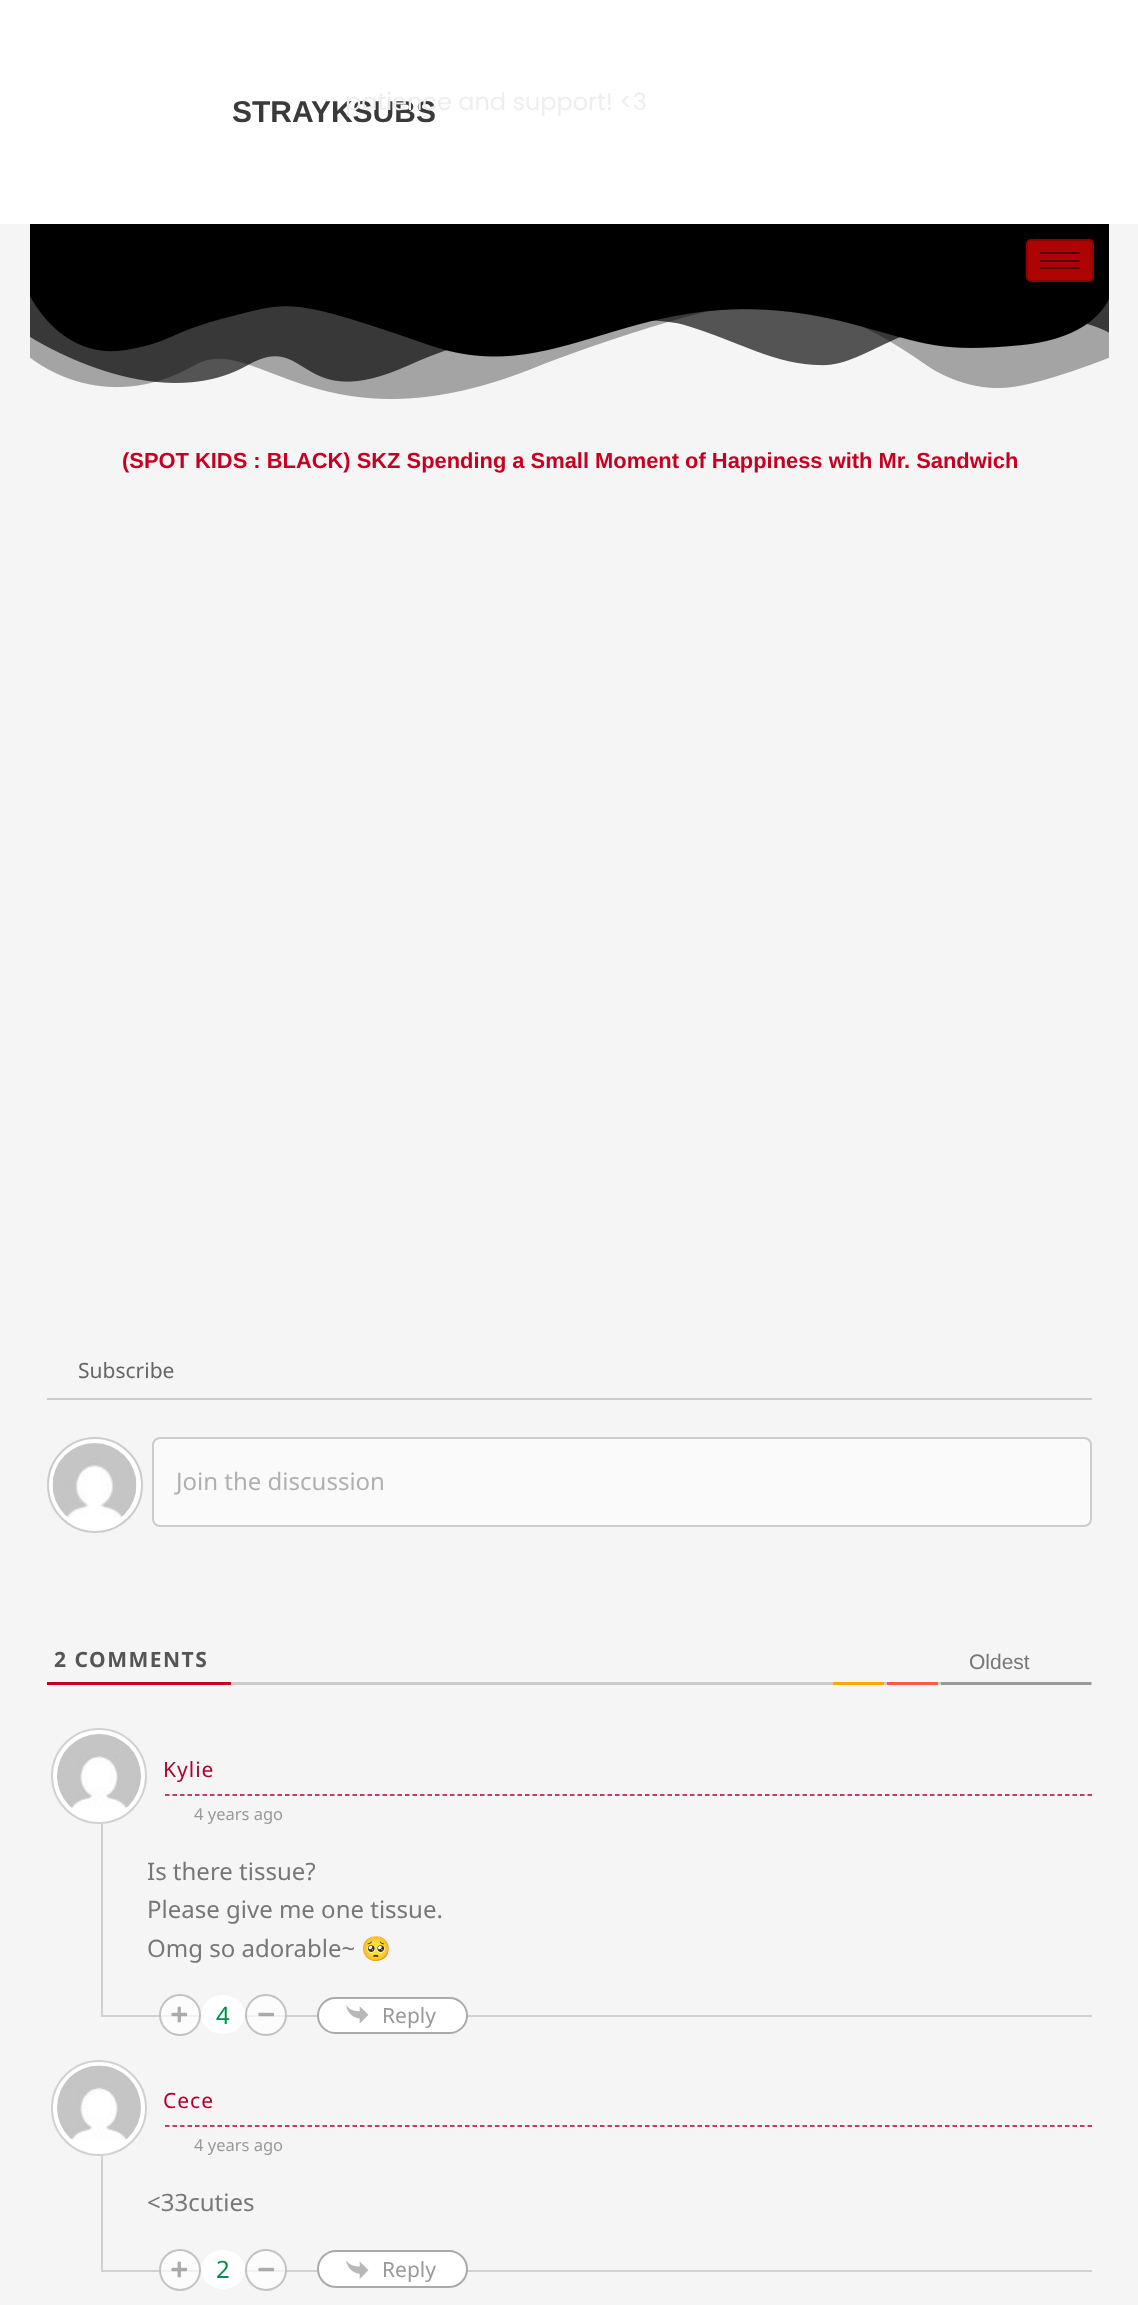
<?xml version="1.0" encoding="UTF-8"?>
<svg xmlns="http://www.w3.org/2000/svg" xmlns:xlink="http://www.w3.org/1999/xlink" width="1138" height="2305">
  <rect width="100%" height="100%" fill="#f5f5f5" />
  <rect width="1138" height="224" fill="#ffffff" />
  <rect x="30" y="224" width="1079" height="73" fill="#000000" />
  <rect x="1026" y="239" width="68" height="43" rx="5" fill="#ad0303" />
  <rect x="1027" y="240" width="66" height="41" rx="4" fill="none" stroke="#000000" stroke-opacity="0.2" stroke-width="2" />
  <rect x="1040" y="252" width="40" height="2" fill="#570202" />
  <rect x="1040" y="260" width="40" height="2" fill="#570202" />
  <rect x="1040" y="267" width="40" height="2" fill="#570202" />
  <image x="30" y="297" width="1079" height="102" xlink:href="image1.png" />
  <rect x="47" y="1398" width="1045" height="2" fill="#cccccc" />
  <circle cx="95" cy="1485" r="47" fill="#ffffff" stroke="#cccccc" stroke-width="2" />
  <image x="52" y="1443" width="85" height="75" xlink:href="image2.png" />
  <rect x="153" y="1438" width="938" height="88" rx="7" fill="#fafafa" stroke="#cccccc" stroke-width="2" />
  <rect x="231" y="1682" width="861" height="3" fill="#cccccc" />
  <rect x="47" y="1682" width="184" height="3" fill="#c60021" />
  <rect x="941" y="1682" width="150" height="3" fill="#999999" />
  <rect x="833" y="1682" width="51" height="3" fill="#ffa600" />
  <rect x="887" y="1682" width="51" height="3" fill="#fc5844" />
  <rect x="101" y="2015" width="991" height="2" fill="#d1d1d1" />
  <rect x="101" y="1823" width="2" height="193" fill="#d1d1d1" />
  <circle cx="99" cy="1776" r="47" fill="#ffffff" stroke="#d1d1d1" stroke-width="2" />
  <image x="57" y="1734" width="84" height="75" xlink:href="image3.png" />
  <path d="M 165 1795 h 927" fill="none" stroke="#b3002a" stroke-width="1.5" stroke-dasharray="4.5 3" />
  <circle cx="180" cy="2015" r="21" fill="#ffffff" fill-opacity="0.7" />
  <circle cx="180" cy="2015" r="20" fill="none" stroke="#aaaaaa" stroke-opacity="0.7" stroke-width="2" />
  <image x="171" y="2006" width="17" height="17" xlink:href="image4.png" />
  <ellipse cx="223" cy="2014.5" rx="22" ry="19.5" fill="#ffffff" />
  <circle cx="266" cy="2015" r="21" fill="#ffffff" fill-opacity="0.7" />
  <circle cx="266" cy="2015" r="20" fill="none" stroke="#aaaaaa" stroke-opacity="0.7" stroke-width="2" />
  <image x="258" y="2012" width="17" height="5" xlink:href="image5.png" />
  <rect x="318" y="1998" width="149" height="35" rx="17.5" fill="#ffffff" stroke="#aaaaaa" stroke-width="2" />
  <image x="346" y="2005" width="23" height="19" xlink:href="image6.png" />
  <rect x="101" y="2270" width="991" height="2" fill="#d1d1d1" />
  <rect x="101" y="2155" width="2" height="116" fill="#d1d1d1" />
  <circle cx="99" cy="2108" r="47" fill="#ffffff" stroke="#d1d1d1" stroke-width="2" />
  <image x="57" y="2065" width="84" height="75" xlink:href="image7.png" />
  <path d="M 165 2126 h 927" fill="none" stroke="#b3002a" stroke-width="1.5" stroke-dasharray="4.5 3" />
  <circle cx="180" cy="2270" r="21" fill="#ffffff" fill-opacity="0.7" />
  <circle cx="180" cy="2270" r="20" fill="none" stroke="#aaaaaa" stroke-opacity="0.7" stroke-width="2" />
  <image x="171" y="2261" width="17" height="17" xlink:href="image4.png" />
  <ellipse cx="223" cy="2269.5" rx="22" ry="19.5" fill="#ffffff" />
  <circle cx="266" cy="2270" r="21" fill="#ffffff" fill-opacity="0.7" />
  <circle cx="266" cy="2270" r="20" fill="none" stroke="#aaaaaa" stroke-opacity="0.7" stroke-width="2" />
  <image x="258" y="2267" width="17" height="5" xlink:href="image5.png" />
  <rect x="318" y="2251" width="149" height="36" rx="18" fill="#ffffff" stroke="#aaaaaa" stroke-width="2" />
  <image x="346" y="2260" width="23" height="19" xlink:href="image8.png" />
  <text x="232" y="122" style="font-family: Liberation Sans; font-size: 30px; font-weight: bold; fill: #3a3a3a">STRAYKSUBS</text>
  <text x="345" y="110" style="font-family: Poppins; font-size: 24px; fill: #eeeeee">patience and support! &lt;3</text>
  <text x="122" y="468" style="font-family: Liberation Sans; font-size: 21.9px; font-weight: bold; fill: #c60021">(SPOT KIDS : BLACK) SKZ Spending a Small Moment of Happiness with Mr. Sandwich</text>
  <text x="78" y="1378" style="font-family: Noto Sans; font-size: 21px; fill: #666666">Subscribe</text>
  <text x="176" y="1490" style="font-family: Noto Sans; font-size: 24px; fill: #b0b0b0">Join the discussion</text>
  <text x="54" y="1667" style="font-family: Noto Sans; font-size: 21px; font-weight: bold; letter-spacing: 1.5px; fill: #555555">2 COMMENTS</text>
  <text x="969" y="1669" style="font-family: Liberation Sans; font-size: 21px; fill: #777777">Oldest</text>
  <text x="163" y="1777" style="font-family: Noto Sans; font-size: 21px; letter-spacing: 1px; fill: #b3002a">Kylie</text>
  <text x="194" y="1820" style="font-family: Noto Sans; font-size: 16.5px; fill: #999999">4 years ago</text>
  <text x="147" y="1880" style="font-family: Noto Sans; font-size: 24px; fill: #777777">Is there tissue?</text>
  <text x="147" y="1918" style="font-family: Noto Sans; font-size: 24px; fill: #777777">Please give me one tissue.</text>
  <text x="147" y="1957" style="font-family: Noto Sans; font-size: 24px; fill: #777777">Omg so adorable~</text>
  <text x="361" y="1957" style="font-family: Noto Color Emoji; font-size: 24px; fill: #777777">🥺</text>
  <text x="216" y="2024" style="font-family: Noto Sans; font-size: 24px; fill: #009149">4</text>
  <text x="382" y="2023" style="font-family: Noto Sans; font-size: 21px; fill: #999999">Reply</text>
  <text x="163" y="2108" style="font-family: Noto Sans; font-size: 21px; letter-spacing: 1px; fill: #b3002a">Cece</text>
  <text x="194" y="2151" style="font-family: Noto Sans; font-size: 16.5px; fill: #999999">4 years ago</text>
  <text x="147" y="2211" style="font-family: Noto Sans; font-size: 24px; fill: #777777">&lt;33cuties</text>
  <text x="216" y="2278" style="font-family: Noto Sans; font-size: 24px; fill: #009149">2</text>
  <text x="382" y="2277" style="font-family: Noto Sans; font-size: 21px; fill: #999999">Reply</text>
</svg>
